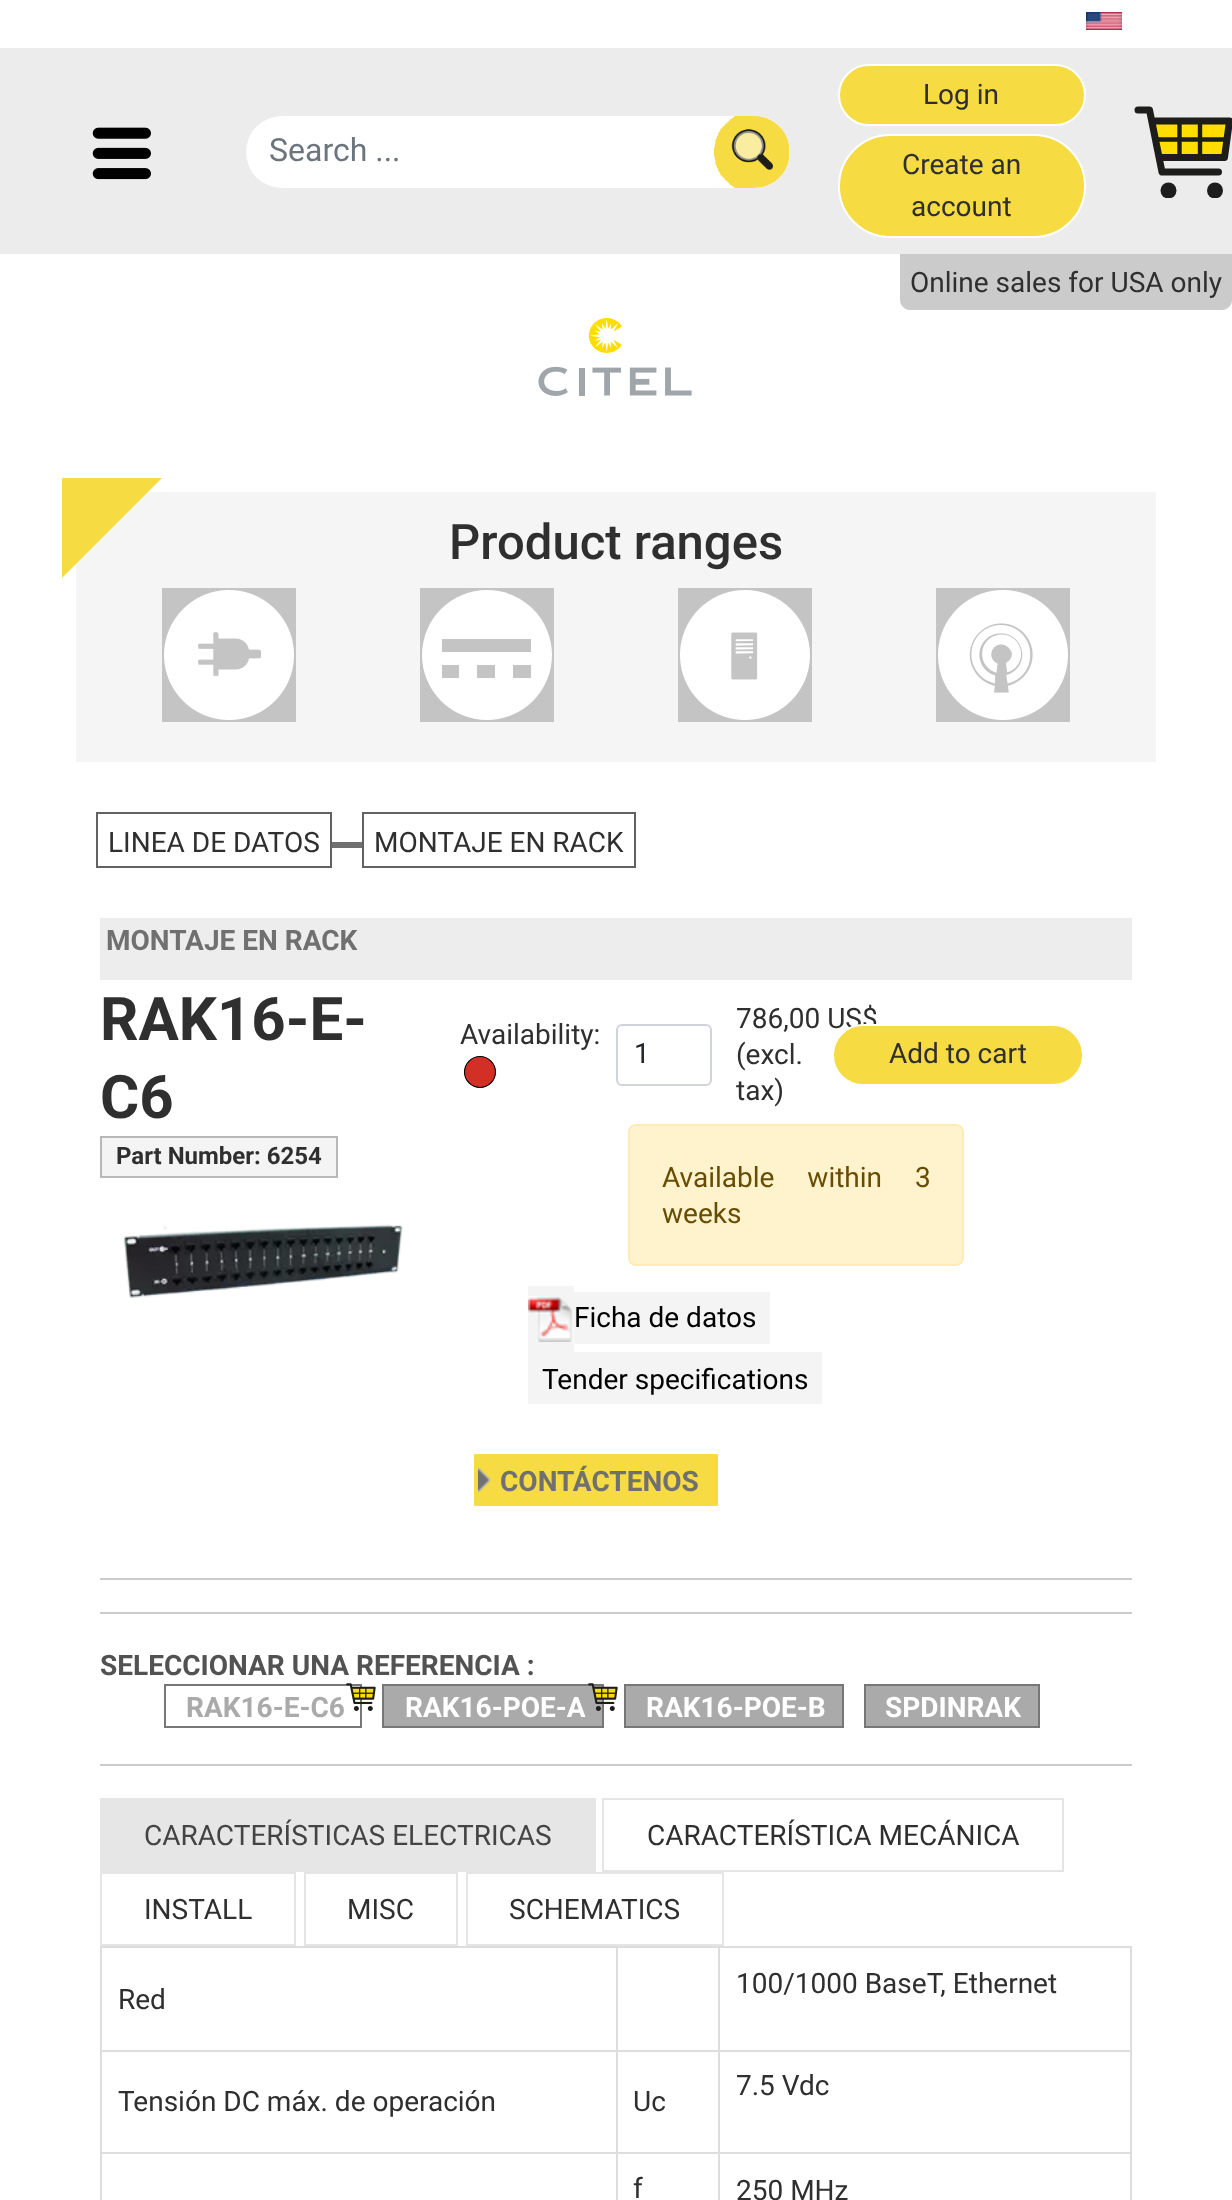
<?xml version="1.0" encoding="UTF-8"?>
<svg xmlns="http://www.w3.org/2000/svg" xmlns:xlink="http://www.w3.org/1999/xlink" width="1232" height="2200">
  <defs>
    <clipPath id="clip1"><rect x="1134" y="104" width="98" height="94" /></clipPath>
  </defs>
  <rect width="100%" height="100%" fill="#ffffff" />
  <image x="1086" y="12" width="36" height="18" xlink:href="image1.png" />
  <rect y="48" width="1232" height="206" fill="#ececec" />
  <image x="92" y="127" width="59" height="53" xlink:href="image2.png" />
  <rect x="246" y="116" width="544" height="72" rx="36" fill="#ffffff" />
  <image x="714" y="116" width="76" height="72" xlink:href="image3.png" />
  <rect x="839" y="65" width="246" height="60" rx="30" fill="#f7db42" stroke="#ffffff" stroke-width="2" />
  <rect x="839" y="135" width="246" height="102" rx="51" fill="#f7db42" stroke="#ffffff" stroke-width="2" />
  <path d="M 1154 121 h 75 l -5 37 h -62" fill="#ffdd00" />
  <path d="M 1153.5 121 h 76 l -5 36.5 h -62.5" fill="none" stroke="#1d1d1b" stroke-width="7" stroke-linecap="round" stroke-linejoin="round" />
  <path d="M 1179.5 121 v 33.5 m 20.5 -33.5 v 33.5" fill="none" stroke="#1d1d1b" stroke-width="4.4" stroke-linecap="round" stroke-linejoin="round" />
  <path d="M 1224.5 139.5 h -66" fill="none" stroke="#1d1d1b" stroke-width="4.4" stroke-linecap="round" stroke-linejoin="round" />
  <path d="M 1138 110 h 11.5 l 12.5 62 h 56.5" fill="none" stroke="#1d1d1b" stroke-width="7" stroke-linecap="round" stroke-linejoin="round" />
  <g clip-path="url(#clip1)">
    <circle cx="1168.5" cy="190.5" r="8" fill="#1d1d1b" />
    <circle cx="1215" cy="190.5" r="8" fill="#1d1d1b" />
  </g>
  <path d="M 900 254 h 332 v 46 c 0 5.5 -4.5 10 -10 10 h -312 c -5.5 0 -10 -4.5 -10 -10 z" fill="#cbcbcb" />
  <image x="538" y="318" width="154" height="78" xlink:href="image4.png" />
  <rect x="76" y="492" width="1080" height="270" fill="#f5f5f5" />
  <path d="M 62 478 h 100 l -100 100 z" fill="#f7db42" />
  <rect x="162" y="588" width="134" height="134" fill="#c4c4c4" />
  <image x="164" y="590" width="130" height="130" xlink:href="image5.png" />
  <rect x="420" y="588" width="134" height="134" fill="#c4c4c4" />
  <circle cx="487" cy="655" r="65" fill="#ffffff" />
  <rect x="442" y="639" width="89" height="13" fill="#c4c4c4" />
  <rect x="442" y="665" width="17" height="13" fill="#c4c4c4" />
  <rect x="477" y="665" width="18" height="13" fill="#c4c4c4" />
  <rect x="513" y="665" width="18" height="13" fill="#c4c4c4" />
  <rect x="678" y="588" width="134" height="134" fill="#c4c4c4" />
  <image x="680" y="590" width="130" height="130" xlink:href="image6.png" />
  <rect x="936" y="588" width="134" height="134" fill="#c4c4c4" />
  <image x="938" y="590" width="130" height="130" xlink:href="image7.png" />
  <rect x="97" y="813" width="234" height="54" fill="none" stroke="#626262" stroke-width="2" />
  <rect x="332" y="842" width="30" height="6" fill="#707070" />
  <rect x="363" y="813" width="272" height="54" fill="none" stroke="#626262" stroke-width="2" />
  <rect x="100" y="918" width="1032" height="62" fill="#ededed" />
  <rect x="101" y="1137" width="236" height="40" fill="#f4f4f4" stroke="#b8b8b8" stroke-width="2" />
  <image x="123" y="1224" width="280" height="74" xlink:href="image8.png" />
  <circle cx="480" cy="1072" r="15.5" fill="#d22f27" stroke="#000000" stroke-width="1.1" />
  <rect x="617" y="1025" width="94" height="60" rx="5" fill="none" stroke="#ced4da" stroke-width="2" />
  <rect x="629" y="1125" width="334" height="140" rx="7" fill="#fff3cd" stroke="#ffecb5" stroke-width="2" />
  <rect x="528" y="1286" width="46" height="66" fill="#f4f4f4" />
  <image x="528" y="1296" width="46" height="46" xlink:href="image9.png" />
  <rect x="574" y="1292" width="196" height="52" fill="#f4f4f4" />
  <rect x="528" y="1352" width="294" height="52" fill="#f4f4f4" />
  <rect x="474" y="1454" width="244" height="52" fill="#f7db42" />
  <image x="478" y="1468" width="12" height="24" xlink:href="image10.png" />
  <rect x="100" y="1578" width="1032" height="2" fill="#cbcbcb" />
  <rect x="100" y="1612" width="1032" height="2" fill="#cbcbcb" />
  <rect x="165" y="1685" width="196" height="42" fill="none" stroke="#777777" stroke-width="2" />
  <image x="346" y="1683" width="30" height="28" xlink:href="image11.png" />
  <rect x="383" y="1685" width="220" height="42" fill="#aaaaaa" stroke="#777777" stroke-width="2" />
  <image x="588" y="1683" width="30" height="28" xlink:href="image12.png" />
  <rect x="625" y="1685" width="218" height="42" fill="#aaaaaa" stroke="#777777" stroke-width="2" />
  <rect x="865" y="1685" width="174" height="42" fill="#aaaaaa" stroke="#777777" stroke-width="2" />
  <rect x="100" y="1764" width="1032" height="2" fill="#cbcbcb" />
  <rect x="100" y="1798" width="496" height="74" fill="#e6e6e6" />
  <rect x="603" y="1799" width="460" height="72" fill="none" stroke="#e5e5e5" stroke-width="2" />
  <rect x="101" y="1873" width="194" height="72" fill="none" stroke="#e5e5e5" stroke-width="2" />
  <rect x="305" y="1873" width="152" height="72" fill="none" stroke="#e5e5e5" stroke-width="2" />
  <rect x="467" y="1873" width="256" height="72" fill="none" stroke="#e5e5e5" stroke-width="2" />
  <rect x="718" y="1946" width="414" height="2" fill="#dddddd" />
  <rect x="718" y="2050" width="414" height="2" fill="#dddddd" />
  <rect x="718" y="2152" width="414" height="2" fill="#dddddd" />
  <rect x="718" y="2152" width="2" height="48" fill="#dddddd" />
  <rect x="616" y="2152" width="104" height="2" fill="#dddddd" />
  <rect x="718" y="2050" width="2" height="104" fill="#dddddd" />
  <rect x="616" y="2050" width="104" height="2" fill="#dddddd" />
  <rect x="718" y="1946" width="2" height="106" fill="#dddddd" />
  <rect x="616" y="1946" width="104" height="2" fill="#dddddd" />
  <rect x="616" y="2152" width="2" height="48" fill="#dddddd" />
  <rect x="100" y="2152" width="518" height="2" fill="#dddddd" />
  <rect x="616" y="2050" width="2" height="104" fill="#dddddd" />
  <rect x="100" y="2050" width="518" height="2" fill="#dddddd" />
  <rect x="616" y="1946" width="2" height="106" fill="#dddddd" />
  <rect x="100" y="1946" width="518" height="2" fill="#dddddd" />
  <rect x="100" y="2152" width="2" height="48" fill="#dddddd" />
  <rect x="100" y="2050" width="2" height="104" fill="#dddddd" />
  <rect x="100" y="1946" width="2" height="106" fill="#dddddd" />
  <rect x="1130" y="2152" width="2" height="48" fill="#dddddd" />
  <rect x="1130" y="2050" width="2" height="104" fill="#dddddd" />
  <rect x="1130" y="1946" width="2" height="106" fill="#dddddd" />
  <text x="269" y="161" style="font-family: Roboto; font-size: 32px; fill: #6c757d">Search ...</text>
  <text x="923" y="104" style="font-family: Roboto; font-size: 28px; fill: #2f2f2f">Log in</text>
  <text x="902" y="174" style="font-family: Roboto; font-size: 28px; fill: #2f2f2f">Create an</text>
  <text x="911" y="216" style="font-family: Roboto; font-size: 28px; fill: #2f2f2f">account</text>
  <text x="910" y="292" style="font-family: Roboto; font-size: 28px; fill: #2f2f2f">Online sales for USA only</text>
  <text x="449" y="559" style="font-family: Roboto; font-size: 49px; font-weight: 500; fill: #2f2f2f">Product ranges</text>
  <text x="108" y="852" style="font-family: Roboto; font-size: 28px; fill: #2f2f2f">LINEA DE DATOS</text>
  <text x="374" y="852" style="font-family: Roboto; font-size: 28px; fill: #2f2f2f">MONTAJE EN RACK</text>
  <text x="106" y="950" style="font-family: Roboto; font-size: 28px; font-weight: bold; fill: #707070">MONTAJE EN RACK</text>
  <text x="100" y="1040" style="font-family: Roboto; font-size: 60px; font-weight: bold; fill: #2f2f2f">RAK16-E-</text>
  <text x="100" y="1118" style="font-family: Roboto; font-size: 60px; font-weight: bold; fill: #2f2f2f">C6</text>
  <text x="116" y="1164" style="font-family: Roboto; font-size: 24px; font-weight: bold; fill: #2f2f2f">Part Number: 6254</text>
  <text x="460" y="1044" style="font-family: Roboto; font-size: 28px; fill: #2f2f2f">Availability:</text>
  <text x="634" y="1063" style="font-family: Roboto; font-size: 28px; fill: #212529">1</text>
  <text x="736" y="1028" style="font-family: Roboto; font-size: 28px; fill: #2f2f2f">786,00 US$</text>
  <text x="736" y="1064" style="font-family: Roboto; font-size: 28px; fill: #2f2f2f">(excl.</text>
  <text x="736" y="1100" style="font-family: Roboto; font-size: 28px; fill: #2f2f2f">tax)</text>
  <rect x="833" y="1025" width="250" height="60" rx="30" fill="#f7db42" stroke="#ffffff" stroke-width="2" />
  <text x="889" y="1063" style="font-family: Roboto; font-size: 28px; fill: #2f2f2f">Add to cart</text>
  <text x="662" y="1187" word-spacing="26" style="font-family: Roboto; font-size: 28px; fill: #664d03">Available within 3</text>
  <text x="662" y="1223" style="font-family: Roboto; font-size: 28px; fill: #664d03">weeks</text>
  <text x="574" y="1327" style="font-family: Roboto; font-size: 28px; fill: #000000">Ficha de datos</text>
  <text x="542" y="1389" style="font-family: Roboto; font-size: 28px; fill: #000000">Tender specifications</text>
  <text x="500" y="1491" style="font-family: Roboto; font-size: 28px; font-weight: bold; fill: #707070">CONTÁCTENOS</text>
  <text x="100" y="1675" style="font-family: Roboto; font-size: 28px; font-weight: bold; fill: #525252">SELECCIONAR UNA REFERENCIA :</text>
  <text x="186" y="1717" style="font-family: Roboto; font-size: 28px; font-weight: bold; fill: #aaaaaa">RAK16-E-C6</text>
  <text x="405" y="1717" style="font-family: Roboto; font-size: 28px; font-weight: bold; fill: #ffffff">RAK16-POE-A</text>
  <text x="646" y="1717" style="font-family: Roboto; font-size: 28px; font-weight: bold; fill: #ffffff">RAK16-POE-B</text>
  <text x="885" y="1717" style="font-family: Roboto; font-size: 28px; font-weight: bold; fill: #ffffff">SPDINRAK</text>
  <text x="144" y="1845" style="font-family: Roboto; font-size: 28px; fill: #444444">CARACTERÍSTICAS ELECTRICAS</text>
  <text x="647" y="1845" style="font-family: Roboto; font-size: 28px; fill: #2f2f2f">CARACTERÍSTICA MECÁNICA</text>
  <text x="144" y="1919" style="font-family: Roboto; font-size: 28px; fill: #2f2f2f">INSTALL</text>
  <text x="347" y="1919" style="font-family: Roboto; font-size: 28px; fill: #2f2f2f">MISC</text>
  <text x="509" y="1919" style="font-family: Roboto; font-size: 28px; fill: #2f2f2f">SCHEMATICS</text>
  <text x="118" y="2009" style="font-family: Roboto; font-size: 28px; fill: #2f2f2f">Red</text>
  <text x="736" y="1993" style="font-family: Roboto; font-size: 28px; fill: #2f2f2f">100/1000 BaseT, Ethernet</text>
  <text x="736" y="2095" style="font-family: Roboto; font-size: 28px; fill: #2f2f2f">7.5 Vdc</text>
  <text x="118" y="2111" style="font-family: Roboto; font-size: 28px; fill: #2f2f2f">Tensión DC máx. de operación</text>
  <text x="633" y="2111" style="font-family: Roboto; font-size: 28px; fill: #2f2f2f">Uc</text>
  <text x="633" y="2198" style="font-family: Roboto; font-size: 28px; fill: #2f2f2f">f</text>
  <text x="736" y="2200" style="font-family: Roboto; font-size: 28px; fill: #2f2f2f">250 MHz</text>
</svg>
